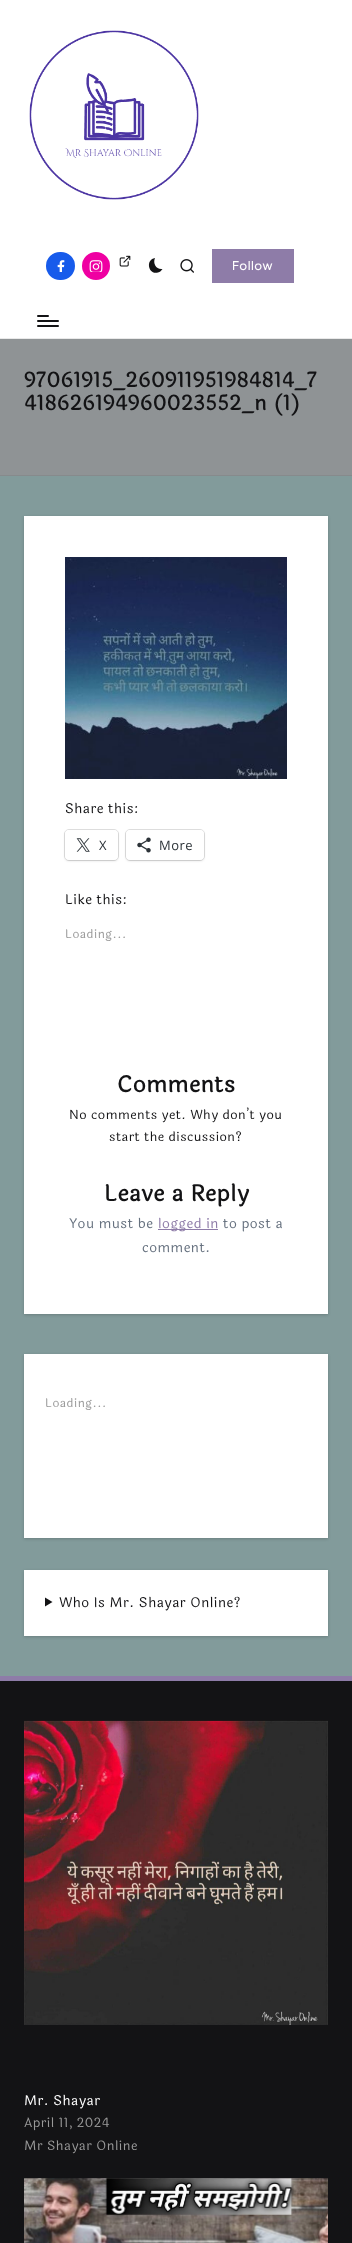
<?xml version="1.0" encoding="UTF-8"?>
<svg xmlns="http://www.w3.org/2000/svg" xmlns:xlink="http://www.w3.org/1999/xlink" width="352" height="2243">
  <rect width="100%" height="100%" fill="#829b9b" />
  <rect width="352" height="338" fill="#ffffff" />
  <rect y="338" width="352" height="1" fill="#e9e9e9" />
  <image x="29" y="30" width="170" height="170" xlink:href="image1.png" />
  <rect x="46" y="252" width="29" height="28" rx="14" fill="#175beb" />
  <image x="57" y="260" width="8" height="12" xlink:href="image2.png" />
  <circle cx="96" cy="266" r="14" fill="#ef00a2" />
  <image x="89" y="260" width="14" height="12" xlink:href="image3.png" />
  <image x="119" y="255" width="12" height="12" xlink:href="image4.png" />
  <path d="M 162.5 269 c -6 1 -10 -5.5 -7.5 -11 c -10 1.5 -6.5 17.5 3 14.5 c 2 -0.5 3.5 -2 4.5 -3.5 z" fill="#131315" />
  <image x="180" y="259" width="14" height="14" xlink:href="image5.png" />
  <rect x="212" y="249" width="82" height="34" fill="#8e7ca8" />
  <rect x="37" y="320" width="22" height="2" rx="1" fill="#131315" />
  <rect x="37" y="315" width="12" height="2" rx="1" fill="#131315" />
  <rect x="37" y="325" width="22" height="2" rx="1" fill="#131315" />
  <rect y="339" width="352" height="136" fill="#8f9395" />
  <rect y="475" width="352" height="1" fill="#868a8c" />
  <rect x="24" y="517" width="304" height="798" fill="#000000" fill-opacity="0.18" filter="blur(1.5px)" />
  <rect x="24" y="516" width="304" height="798" fill="#ffffff" />
  <image x="65" y="557" width="222" height="222" xlink:href="image6.png" />
  <rect x="64.5" y="829.5" width="54" height="31" rx="4.5" fill="none" stroke="#e0e0e0" />
  <rect x="65" y="831" width="53" height="30" rx="4" fill="#000000" fill-opacity="0.12" filter="blur(1px)" />
  <rect x="65" y="830" width="53" height="30" rx="4" fill="#ffffff" />
  <image x="76" y="838" width="14" height="14" xlink:href="image7.png" />
  <rect x="125.5" y="829.5" width="79" height="31" rx="4.5" fill="none" stroke="#e0e0e0" />
  <rect x="126" y="831" width="78" height="30" rx="4" fill="#000000" fill-opacity="0.12" filter="blur(1px)" />
  <rect x="126" y="830" width="78" height="30" rx="4" fill="#ffffff" />
  <image x="137" y="837" width="14" height="16" xlink:href="image8.png" />
  <rect x="158" y="1229" width="60" height="1" fill="#8e7ca8" />
  <rect x="24" y="1355" width="304" height="184" fill="#000000" fill-opacity="0.18" filter="blur(1.5px)" />
  <rect x="24" y="1354" width="304" height="184" fill="#ffffff" />
  <rect x="24" y="1571" width="304" height="66" fill="#000000" fill-opacity="0.18" filter="blur(1.5px)" />
  <rect x="24" y="1570" width="304" height="66" fill="#ffffff" />
  <path d="M 45 1597.5 l 7.5 4.5 l -7.5 4.5 z" fill="#131315" />
  <rect y="1681" width="352" height="562" fill="#131315" />
  <rect y="1676" width="352" height="5" fill="#8e7ca8" />
  <image x="24" y="1720" width="304" height="305" xlink:href="image9.png" />
  <image x="24" y="2178" width="304" height="65" xlink:href="image10.png" />
  <text x="232" y="270" style="font-family: Plus Jakarta Sans; font-size: 12px; font-weight: 500; letter-spacing: 0.5px; fill: #ffffff">Follow</text>
  <text x="24" y="387" style="font-family: Laila; font-size: 20.75px; font-weight: bold; letter-spacing: 0.5px; fill: #131315">97061915_260911951984814_7</text>
  <text x="24" y="410" style="font-family: Laila; font-size: 20.75px; font-weight: bold; letter-spacing: 0.5px; fill: #131315">418626194960023552_n (1)</text>
  <text x="65" y="813" style="font-family: Laila; font-size: 13.6px; letter-spacing: 0.5px; fill: #131315">Share this:</text>
  <text x="99" y="850" style="font-family: Open Sans; font-size: 13px; letter-spacing: 0.5px; fill: #2c3338">X</text>
  <text x="159" y="850" style="font-family: Open Sans; font-size: 13px; letter-spacing: 0.5px; fill: #2c3338">More</text>
  <text x="65" y="904" style="font-family: Laila; font-size: 13.6px; letter-spacing: 0.5px; fill: #131315">Like this:</text>
  <text x="65" y="938" style="font-family: Laila; font-size: 12px; letter-spacing: 0.5px; fill: #999999">Loading...</text>
  <text x="117" y="1092" style="font-family: Laila; font-size: 22.5px; font-weight: bold; letter-spacing: 0.5px; fill: #131315">Comments</text>
  <text x="69" y="1119" style="font-family: Laila; font-size: 12.75px; letter-spacing: 0.5px; fill: #131315">No comments yet. Why don’t you</text>
  <text x="109" y="1141" style="font-family: Laila; font-size: 12.75px; letter-spacing: 0.5px; fill: #131315">start the discussion?</text>
  <text x="104" y="1201" style="font-family: Laila; font-size: 22.5px; font-weight: bold; letter-spacing: 0.5px; fill: #131315">Leave a Reply</text>
  <text x="69" y="1228" style="font-family: Laila; font-size: 13.6px; letter-spacing: 0.5px; fill: #66717f">You must be</text>
  <text x="158" y="1228" style="font-family: Laila; font-size: 13.6px; letter-spacing: 0.5px; fill: #8e7ca8">logged in</text>
  <text x="223" y="1228" style="font-family: Laila; font-size: 13.6px; letter-spacing: 0.5px; fill: #66717f">to post a</text>
  <text x="142" y="1252" style="font-family: Laila; font-size: 13.6px; letter-spacing: 0.5px; fill: #66717f">comment.</text>
  <text x="45" y="1407" style="font-family: Laila; font-size: 12px; letter-spacing: 0.5px; fill: #999999">Loading...</text>
  <text x="59" y="1607" style="font-family: Laila; font-size: 13.6px; letter-spacing: 0.5px; fill: #131315">Who Is Mr. Shayar Online?</text>
  <text x="24" y="2105" style="font-family: Laila; font-size: 13.6px; letter-spacing: 0.5px; fill: #ffffff">Mr. Shayar</text>
  <text x="24" y="2127" style="font-family: Laila; font-size: 13px; letter-spacing: 0.5px; fill: #999999">April 11, 2024</text>
  <text x="24" y="2150" style="font-family: Laila; font-size: 13px; letter-spacing: 0.5px; fill: #999999">Mr Shayar Online</text>
</svg>
